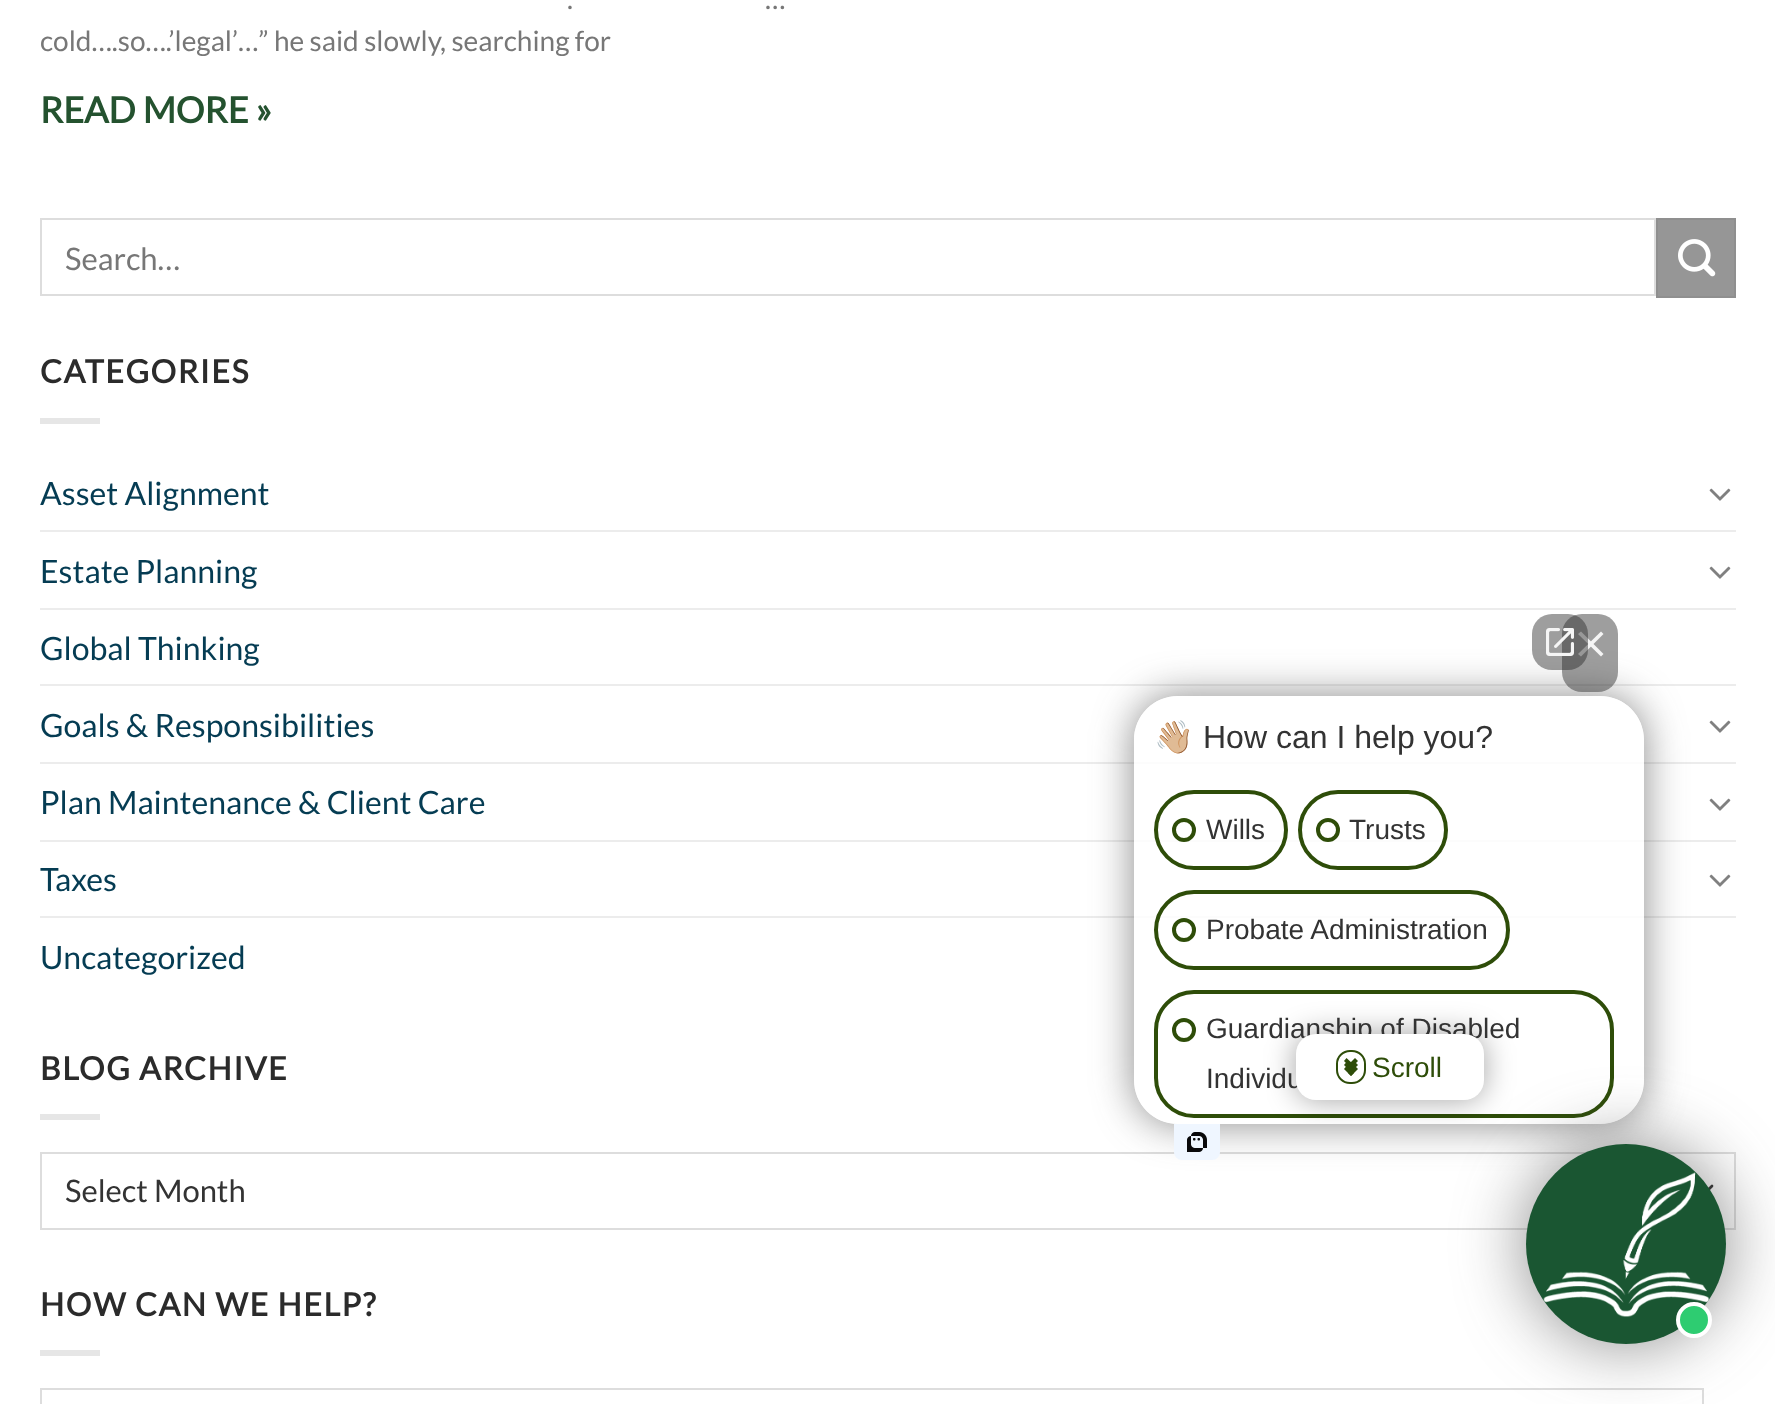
<?xml version="1.0" encoding="UTF-8"?>
<svg xmlns="http://www.w3.org/2000/svg" xmlns:xlink="http://www.w3.org/1999/xlink" width="1775" height="1404">
  <defs>
    <clipPath id="clip1"><path d="M 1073 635 h 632 v 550 h -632 z m 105 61 h 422 c 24.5 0 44 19.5 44 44 v 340 c 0 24.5 -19.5 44 -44 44 h -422 c -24.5 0 -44 -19.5 -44 -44 v -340 c 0 -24.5 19.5 -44 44 -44 z" clip-rule="evenodd" /></clipPath>
    <clipPath id="clip2"><rect x="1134" y="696" width="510" height="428" rx="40" /></clipPath>
  </defs>
  <rect width="100%" height="100%" fill="#ffffff" />
  <rect x="41" y="219" width="1614" height="76" fill="none" stroke="#dddddd" stroke-width="2" />
  <rect x="1657" y="219" width="78" height="78" fill="#969696" stroke="#8f8f8f" stroke-width="2" />
  <image x="1678" y="239" width="38" height="38" xlink:href="image1.png" />
  <rect x="40" y="418" width="60" height="6" fill="#e6e6e6" />
  <image x="1709" y="488" width="22" height="13" xlink:href="image2.png" />
  <rect x="40" y="530" width="1696" height="2" fill="#ececec" />
  <image x="1709" y="566" width="22" height="13" xlink:href="image2.png" />
  <rect x="40" y="608" width="1696" height="2" fill="#ececec" />
  <rect x="40" y="684" width="1696" height="2" fill="#ececec" />
  <image x="1709" y="720" width="22" height="13" xlink:href="image2.png" />
  <rect x="40" y="762" width="1696" height="2" fill="#ececec" />
  <image x="1709" y="798" width="22" height="13" xlink:href="image2.png" />
  <rect x="40" y="840" width="1696" height="2" fill="#ececec" />
  <image x="1709" y="874" width="22" height="13" xlink:href="image2.png" />
  <rect x="40" y="916" width="1696" height="2" fill="#ececec" />
  <rect x="40" y="1114" width="60" height="6" fill="#e6e6e6" />
  <path d="M 1696 1186 l 8 8 l 8 -8" fill="none" stroke="#333333" stroke-width="2.7" stroke-linecap="round" stroke-linejoin="round" />
  <rect x="41" y="1153" width="1694" height="76" fill="none" stroke="#dddddd" stroke-width="2" />
  <rect x="40" y="1350" width="60" height="6" fill="#e6e6e6" />
  <rect x="41" y="1389" width="1662" height="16" fill="none" stroke="#dddddd" stroke-width="2" />
  <g clip-path="url(#clip1)">
    <rect x="1134" y="696" width="510" height="428" rx="44" fill="#3c3c3c" fill-opacity="0.6" filter="blur(20px)" />
  </g>
  <rect x="1134" y="696" width="510" height="428" rx="44" fill="#ffffff" fill-opacity="0.85" />
  <rect x="1562" y="614" width="56" height="78" rx="20" fill="#272727" fill-opacity="0.45" />
  <path d="M 1578 634 l 3 -2.5 l 22.5 22.5 l -2.5 2.5 z" fill="#f5f5f5" />
  <path d="M 1601 631.5 l 2.5 2.5 l -22.5 22.5 l -3 -2.5 z" fill="#f5f5f5" />
  <rect x="1532" y="614" width="56" height="56" rx="20" fill="#272727" fill-opacity="0.45" />
  <image x="1546" y="628" width="28" height="28" xlink:href="image3.png" />
  <rect x="1156" y="792" width="130" height="76" rx="38" fill="none" stroke="#2e4d09" stroke-width="4" />
  <circle cx="1184" cy="830" r="10" fill="none" stroke="#2e4d09" stroke-width="4" />
  <rect x="1300" y="792" width="146" height="76" rx="38" fill="none" stroke="#2e4d09" stroke-width="4" />
  <circle cx="1328" cy="830" r="10" fill="none" stroke="#2e4d09" stroke-width="4" />
  <rect x="1156" y="892" width="352" height="76" rx="38" fill="none" stroke="#2e4d09" stroke-width="4" />
  <circle cx="1184" cy="930" r="10" fill="none" stroke="#2e4d09" stroke-width="4" />
  <rect x="1156" y="992" width="456" height="124" rx="38" fill="none" stroke="#2e4d09" stroke-width="4" />
  <circle cx="1184" cy="1030" r="10" fill="none" stroke="#2e4d09" stroke-width="4" />
  <g clip-path="url(#clip2)">
    <rect x="1296" y="1034" width="188" height="66" rx="20" fill="#000000" fill-opacity="0.36" filter="blur(15px)" />
  </g>
  <image x="1174" y="1124" width="46" height="36" xlink:href="image4.png" />
  <text x="567" y="9" style="font-family: Lato; font-size: 28px; fill: #777777">.</text>
  <text x="765" y="9" style="font-family: Lato; font-size: 28px; fill: #777777">…</text>
  <text x="40" y="51" style="font-family: Lato; font-size: 28px; fill: #777777">cold….so….’legal’…” he said slowly, searching for</text>
  <text x="40" y="123" style="font-family: Lato; font-size: 36px; font-weight: bold; fill: #24522f">READ MORE »</text>
  <text x="65" y="270" style="font-family: Lato; font-size: 31px; fill: #777777">Search…</text>
  <text x="40" y="383" style="font-family: Lato; font-size: 32px; font-weight: bold; letter-spacing: 1.6px; fill: #2b2b2b">CATEGORIES</text>
  <text x="40" y="505" style="font-family: Lato; font-size: 32px; fill: #053c53">Asset Alignment</text>
  <text x="40" y="583" style="font-family: Lato; font-size: 32px; fill: #053c53">Estate Planning</text>
  <text x="40" y="660" style="font-family: Lato; font-size: 32px; fill: #053c53">Global Thinking</text>
  <text x="40" y="737" style="font-family: Lato; font-size: 32px; fill: #053c53">Goals &amp; Responsibilities</text>
  <text x="40" y="814" style="font-family: Lato; font-size: 32px; fill: #053c53">Plan Maintenance &amp; Client Care</text>
  <text x="40" y="891" style="font-family: Lato; font-size: 32px; fill: #053c53">Taxes</text>
  <text x="40" y="969" style="font-family: Lato; font-size: 32px; fill: #053c53">Uncategorized</text>
  <text x="40" y="1080" style="font-family: Lato; font-size: 32px; font-weight: bold; letter-spacing: 1.6px; fill: #2b2b2b">BLOG ARCHIVE</text>
  <text x="65" y="1202" style="font-family: Lato; font-size: 31px; fill: #333333">Select Month</text>
  <text x="40" y="1316" style="font-family: Lato; font-size: 32px; font-weight: bold; letter-spacing: 1.6px; fill: #2b2b2b">HOW CAN WE HELP?</text>
  <text x="1154" y="748" style="font-family: Noto Color Emoji; font-size: 32px; fill: #333333">👋🏼</text>
  <text x="1203" y="748" style="font-family: Liberation Sans; font-size: 32px; fill: #333333">How can I help you?</text>
  <text x="1206" y="839" style="font-family: Liberation Sans; font-size: 28px; fill: #333333">Wills</text>
  <text x="1349" y="839" style="font-family: Liberation Sans; font-size: 28px; fill: #333333">Trusts</text>
  <text x="1206" y="939" style="font-family: Liberation Sans; font-size: 28px; fill: #333333">Probate Administration</text>
  <text x="1206" y="1038" style="font-family: Liberation Sans; font-size: 28px; fill: #333333">Guardianship of Disabled</text>
  <text x="1206" y="1088" style="font-family: Liberation Sans; font-size: 28px; fill: #333333">Individu</text>
  <rect x="1296" y="1034" width="188" height="66" rx="20" fill="#ffffff" />
  <rect x="1337" y="1051" width="28" height="32" rx="13" fill="none" stroke="#2e4d09" stroke-width="2" />
  <path d="M 1355 1058 l 3 3 l -7 7 l -3 -3 z" fill="#2e4d09" />
  <path d="M 1346.5 1058 l 7.5 7 l -3 3 l -7 -7 z" fill="#2e4d09" />
  <path d="M 1355 1062 l 3 3 l -7 7 l -3 -3 z" fill="#2e4d09" />
  <path d="M 1346.5 1062 l 7.5 7 l -3 3 l -7 -7 z" fill="#2e4d09" />
  <path d="M 1355 1066 l 3 3 l -7 7 l -3 -3 z" fill="#2e4d09" />
  <path d="M 1346.5 1066 l 7.5 7 l -3 3 l -7 -7 z" fill="#2e4d09" />
  <text x="1372" y="1077" style="font-family: Liberation Sans; font-size: 28px; fill: #2e4d09">Scroll</text>
  <rect x="1526" y="1144" width="200" height="200" rx="100" fill="#3c3c3c" fill-opacity="0.6" filter="blur(35px)" />
  <image x="1526" y="1144" width="200" height="200" xlink:href="image5.png" />
  <circle cx="1694" cy="1320" r="16" fill="#2ecc71" stroke="#ffffff" stroke-width="4" />
</svg>
